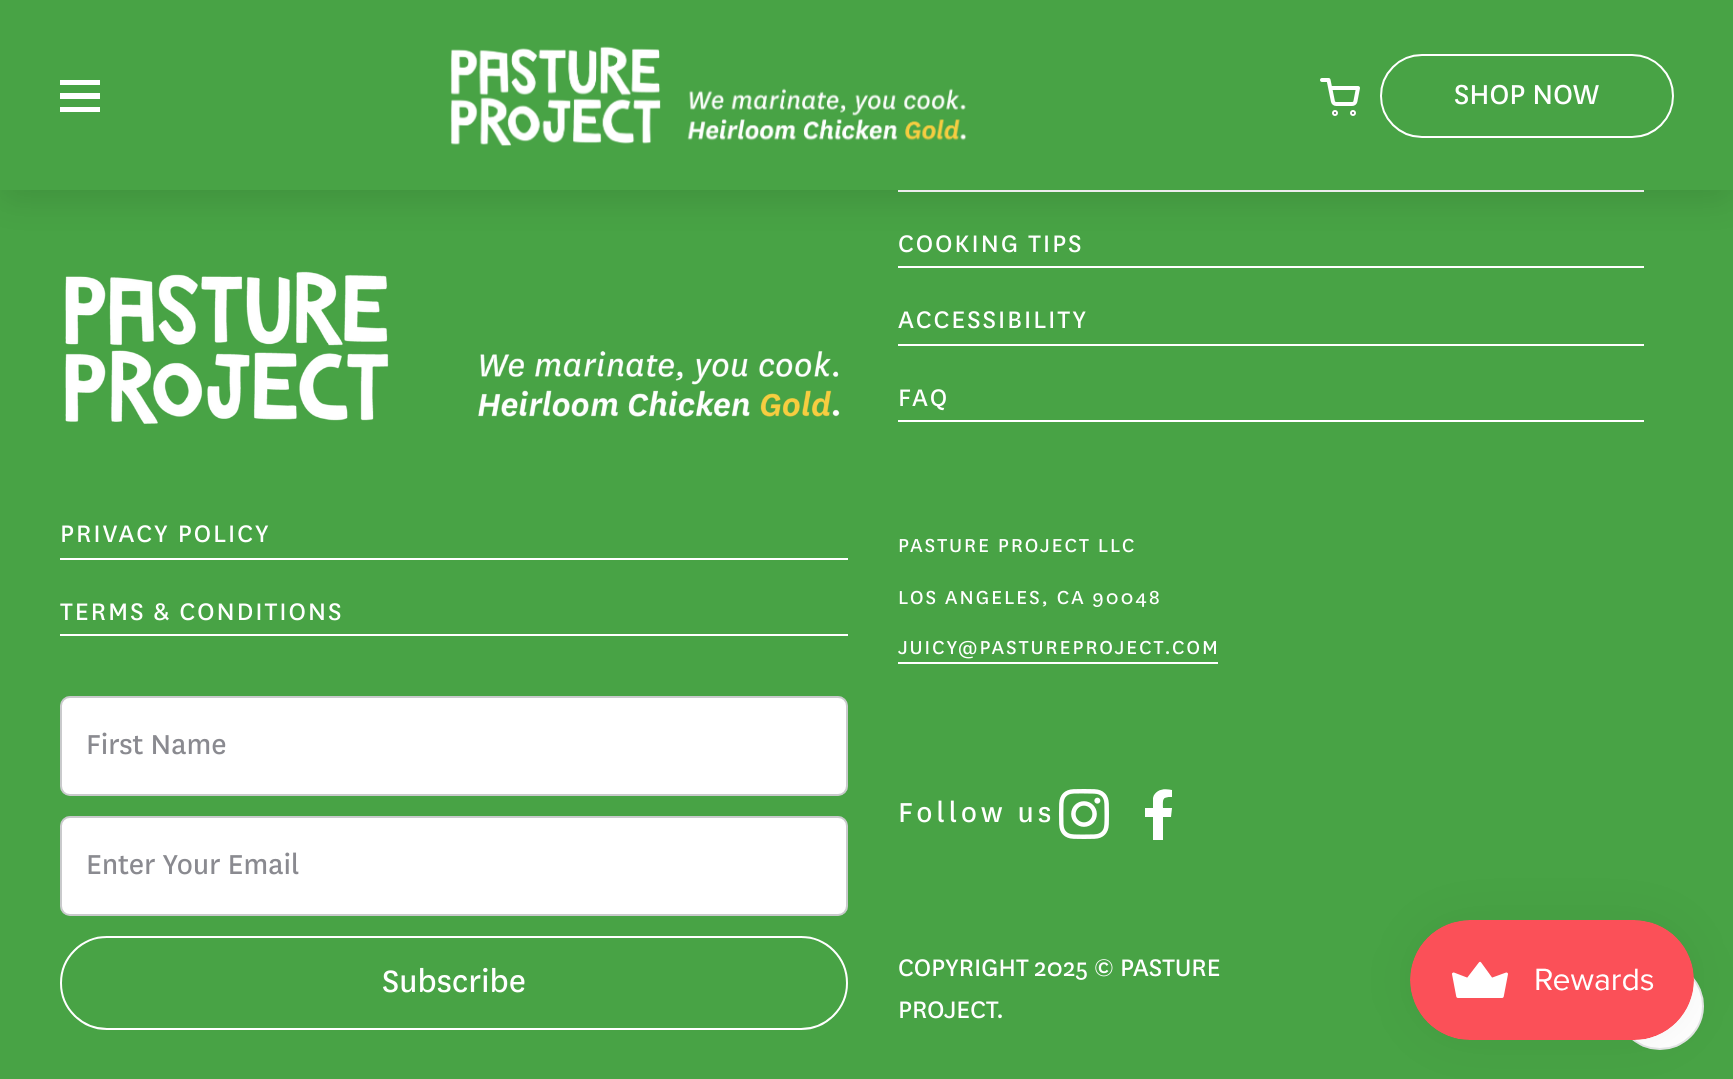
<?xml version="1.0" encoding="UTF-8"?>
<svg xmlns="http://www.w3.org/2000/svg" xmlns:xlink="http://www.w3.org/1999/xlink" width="1733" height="1079">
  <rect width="100%" height="100%" fill="#48a345" />
  <rect x="898" y="190" width="746" height="2" fill="#ffffff" />
  <image x="899" y="235" width="182" height="18" xlink:href="image6.png" />
  <rect y="10" width="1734" height="190" fill="#000000" fill-opacity="0.1" filter="blur(16px)" />
  <rect width="1733" height="190" fill="#48a345" />
  <image x="60" y="80" width="40" height="32" xlink:href="image1.png" />
  <image x="450" y="46" width="517" height="101" xlink:href="image2.png" />
  <image x="1320" y="78" width="40" height="38" xlink:href="image3.png" />
  <rect x="1381" y="55" width="292" height="82" rx="41" fill="none" stroke="#ffffff" stroke-width="2" />
  <image x="1454" y="84" width="145" height="21" xlink:href="image4.png" />
  <image x="65" y="271" width="775" height="153" xlink:href="image5.png" />
  <rect x="898" y="266" width="746" height="2" fill="#ffffff" />
  <rect x="898" y="344" width="746" height="2" fill="#ffffff" />
  <image x="898" y="311" width="188" height="18" xlink:href="image7.png" />
  <rect x="898" y="420" width="746" height="2" fill="#ffffff" />
  <image x="900" y="389" width="46" height="22" xlink:href="image8.png" />
  <rect x="60" y="558" width="788" height="2" fill="#ffffff" />
  <image x="62" y="525" width="207" height="18" xlink:href="image9.png" />
  <rect x="60" y="634" width="788" height="2" fill="#ffffff" />
  <image x="60" y="603" width="281" height="18" xlink:href="image10.png" />
  <rect x="60" y="696" width="788" height="100" rx="10" fill="#ffffff" />
  <rect x="61" y="697" width="786" height="98" rx="9" fill="none" stroke="#4d4e56" stroke-opacity="0.3" stroke-width="2" />
  <image x="88" y="732" width="138" height="23" xlink:href="image11.png" />
  <rect x="60" y="816" width="788" height="100" rx="10" fill="#ffffff" />
  <rect x="61" y="817" width="786" height="98" rx="9" fill="none" stroke="#4d4e56" stroke-opacity="0.3" stroke-width="2" />
  <image x="88" y="852" width="211" height="23" xlink:href="image12.png" />
  <rect x="61" y="937" width="786" height="92" rx="46" fill="none" stroke="#ffffff" stroke-width="2" />
  <image x="383" y="967" width="142" height="26" xlink:href="image13.png" />
  <image x="899" y="538" width="235" height="15" xlink:href="image14.png" />
  <image x="899" y="590" width="260" height="17" xlink:href="image15.png" />
  <image x="898" y="640" width="318" height="19" xlink:href="image16.png" />
  <rect x="898" y="662" width="320" height="2" fill="#ffffff" />
  <image x="900" y="800" width="151" height="23" xlink:href="image17.png" />
  <image x="1059" y="789" width="50" height="50" xlink:href="image18.png" />
  <path d="M 1171 817 l 1 -9 h -9 c 0 -9 -1 -11 9 -11 v -7 c -7 -2 -17 -1 -19 8 v 10 h -8 v 9 h 8 v 23 h 10 v -23 z" fill="#ffffff" />
  <image x="899" y="959" width="130" height="18" xlink:href="image19.png" />
  <image x="1035" y="959" width="78" height="21" xlink:href="image20.png" />
  <image x="1122" y="959" width="98" height="18" xlink:href="image21.png" />
  <image x="900" y="1001" width="99" height="18" xlink:href="image22.png" />
  <image x="998" y="1014" width="4" height="5" xlink:href="image23.png" />
  <circle cx="1660" cy="1006" r="44" fill="#ffffff" />
  <circle cx="1660" cy="1006" r="43" fill="none" stroke="#4d4e56" stroke-opacity="0.15" stroke-width="2" />
  <rect x="1410" y="920" width="284" height="120" rx="60" fill="#000000" fill-opacity="0.05" filter="blur(25px)" />
  <image x="1410" y="920" width="284" height="120" xlink:href="image24.png" />
</svg>
